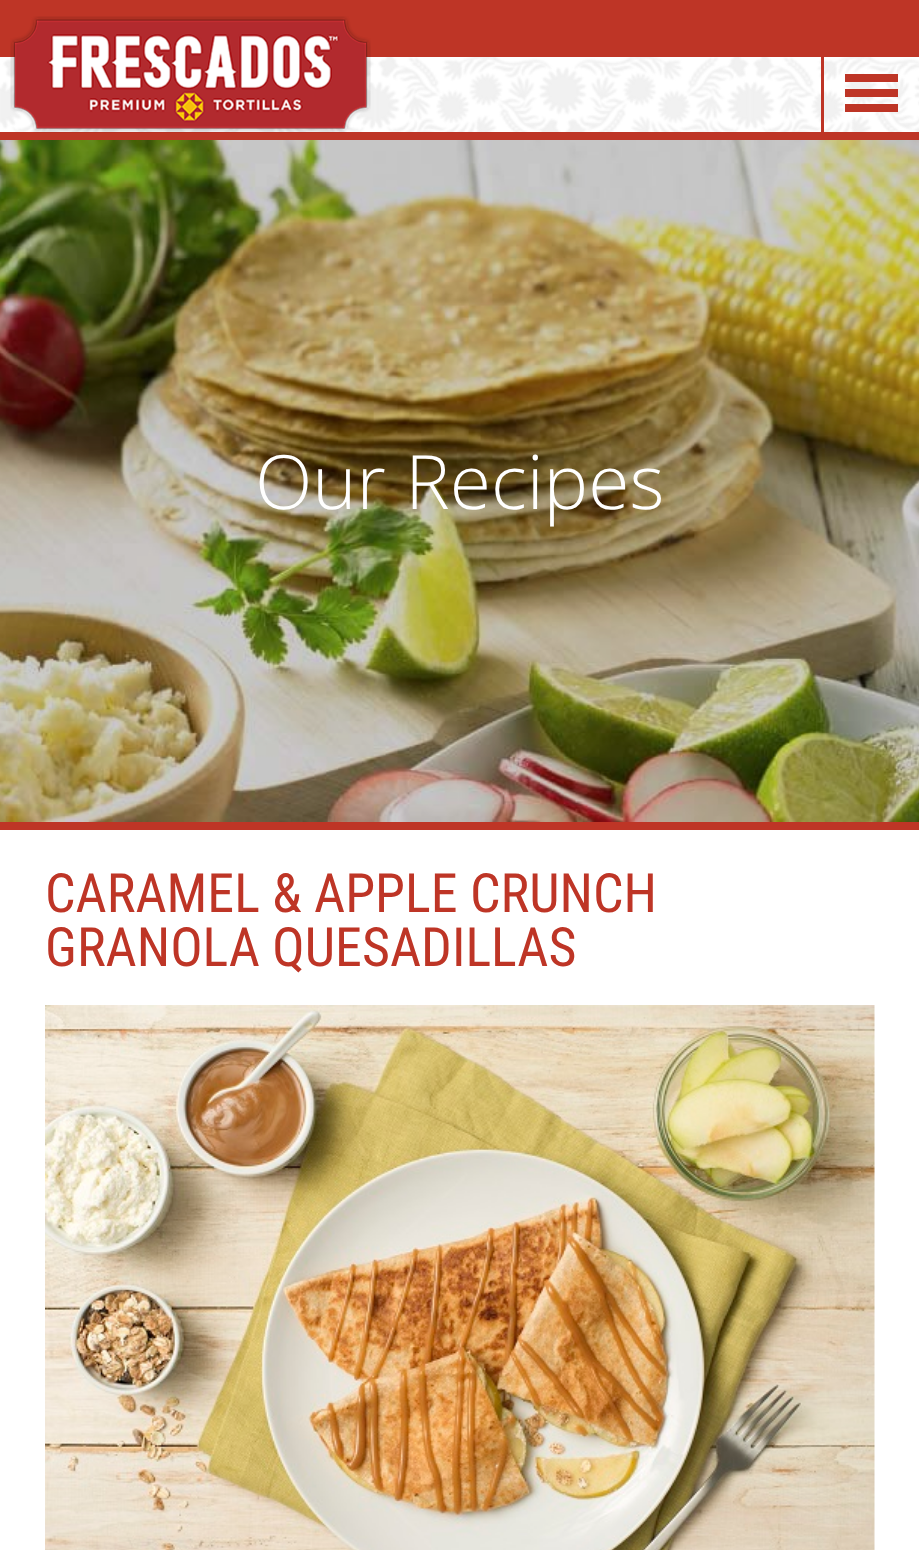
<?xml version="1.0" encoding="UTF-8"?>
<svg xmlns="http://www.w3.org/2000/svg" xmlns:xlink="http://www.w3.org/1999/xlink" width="919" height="1550">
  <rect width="100%" height="100%" fill="#ffffff" />
  <rect width="919" height="57" fill="#be3526" />
  <image x="0" y="57" width="919" height="75" xlink:href="image2.png" />
  <rect y="132" width="919" height="8" fill="#be3526" />
  <image x="10" y="16" width="361" height="117" xlink:href="image1.png" />
  <rect x="821" y="57" width="3" height="75" fill="#be3526" />
  <path d="M 898 82 v -8 h -53 v 8 z m 0 15 v -8 h -53 v 8 z m 0 15 v -8 h -53 v 8 z" fill="#be3526" />
  <image x="0" y="140" width="919" height="682" xlink:href="image3.png" />
  <rect y="822" width="919" height="8" fill="#be3526" />
  <image x="45" y="1005" width="830" height="545" xlink:href="image4.png" />
  <text x="255" y="509" style="font-family: Open Sans; font-size: 75px; font-weight: 300; fill: #ffffff">Our Recipes</text>
  <text x="45" y="912" style="font-family: Roboto Condensed; font-size: 54px; fill: #be3526">CARAMEL &amp; APPLE CRUNCH</text>
  <text x="45" y="966" style="font-family: Roboto Condensed; font-size: 54px; fill: #be3526">GRANOLA QUESADILLAS</text>
</svg>
